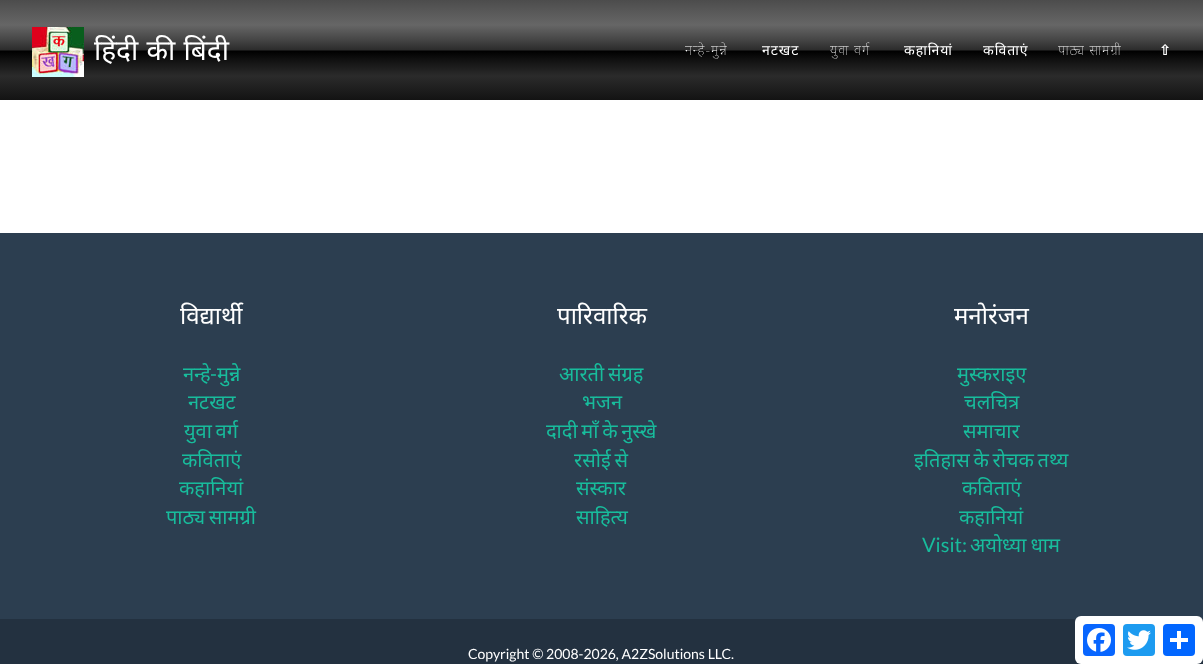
<?xml version="1.0" encoding="UTF-8"?>
<svg xmlns="http://www.w3.org/2000/svg" xmlns:xlink="http://www.w3.org/1999/xlink" width="1203" height="664">
  <defs>
    <linearGradient id="g1" gradientUnits="userSpaceOnUse" x1="602" y1="0" x2="602" y2="100"><stop offset="0" stop-color="#4c4c4c" /><stop offset="0.12" stop-color="#595959" /><stop offset="0.25" stop-color="#666666" /><stop offset="0.39" stop-color="#474747" /><stop offset="0.5" stop-color="#2c2c2c" /><stop offset="0.51" stop-color="#000000" /><stop offset="0.6" stop-color="#111111" /><stop offset="0.76" stop-color="#2b2b2b" /><stop offset="0.91" stop-color="#1c1c1c" /><stop offset="1" stop-color="#131313" /></linearGradient>
  </defs>
  <rect width="100%" height="100%" fill="#ffffff" />
  <rect width="1203" height="100" fill="url(#g1)" />
  <image x="32" y="27" width="52" height="50" xlink:href="image1.png" />
  <rect y="233" width="1203" height="386" fill="#2c3e50" />
  <rect y="619" width="1203" height="45" fill="#233140" />
  <rect x="1075" y="616" width="128" height="48" rx="6" fill="#ffffff" />
  <rect x="1083" y="624" width="32" height="32" rx="4" fill="#0866ff" />
  <image x="1087" y="628" width="24" height="24" xlink:href="image2.png" />
  <rect x="1123" y="624" width="32" height="32" rx="4" fill="#1d9bf0" />
  <image x="1127" y="630" width="24" height="20" xlink:href="image3.png" />
  <rect x="1163" y="624" width="32" height="32" rx="4" fill="#0166ff" />
  <rect x="1177" y="631" width="4" height="18" fill="#ffffff" />
  <rect x="1170" y="638" width="18" height="4" fill="#ffffff" />
  <text x="94" y="60" word-spacing="1" style="font-family: Noto Sans; font-size: 28px; fill: #ffffff">हिंदी की बिंदी</text>
  <text x="685" y="55" style="font-family: Noto Sans; font-size: 14px; font-weight: 100; letter-spacing: 1px; fill: #ffffff">नन्हे-मुन्ने</text>
  <text x="762" y="55" style="font-family: Noto Sans; font-size: 14px; letter-spacing: 1px; fill: #ffffff">नटखट</text>
  <text x="830" y="55" style="font-family: Noto Sans; font-size: 14px; font-weight: 100; letter-spacing: 1px; fill: #ffffff">युवा वर्ग</text>
  <text x="904" y="55" style="font-family: Noto Sans; font-size: 14px; letter-spacing: 1px; fill: #ffffff">कहानियां</text>
  <text x="983" y="55" style="font-family: Noto Sans; font-size: 14px; letter-spacing: 1px; fill: #ffffff">कविताएं</text>
  <text x="1058" y="55" style="font-family: Noto Sans; font-size: 14px; font-weight: 100; letter-spacing: 1px; fill: #ffffff">पाठ्य सामग्री</text>
  <text x="1159" y="55" style="font-family: DejaVu Sans; font-size: 14px; font-weight: bold; letter-spacing: 1px; fill: #ffffff">⇧</text>
  <text x="180" y="324" style="font-family: Noto Sans; font-size: 24px; fill: #ffffff">विद्यार्थी</text>
  <text x="183" y="381" style="font-family: Noto Sans; font-size: 20px; fill: #18bc9c">नन्हे</text>
  <text x="210" y="381" style="font-family: Lato; font-size: 20px; fill: #18bc9c">-</text>
  <text x="217" y="381" style="font-family: Noto Sans; font-size: 20px; fill: #18bc9c">मुन्ने</text>
  <text x="188" y="409" style="font-family: Noto Sans; font-size: 20px; fill: #18bc9c">नटखट</text>
  <text x="184" y="438" word-spacing="-1.5" style="font-family: Noto Sans; font-size: 20px; fill: #18bc9c">युवा वर्ग</text>
  <text x="182" y="467" style="font-family: Noto Sans; font-size: 20px; fill: #18bc9c">कविताएं</text>
  <text x="179" y="495" style="font-family: Noto Sans; font-size: 20px; fill: #18bc9c">कहानियां</text>
  <text x="166" y="524" word-spacing="-1.5" style="font-family: Noto Sans; font-size: 20px; fill: #18bc9c">पाठ्य सामग्री</text>
  <text x="557" y="324" style="font-family: Noto Sans; font-size: 24px; fill: #ffffff">पारिवारिक</text>
  <text x="559" y="381" word-spacing="-1.5" style="font-family: Noto Sans; font-size: 20px; fill: #18bc9c">आरती संग्रह</text>
  <text x="582" y="409" style="font-family: Noto Sans; font-size: 20px; fill: #18bc9c">भजन</text>
  <text x="546" y="438" word-spacing="-1.5" style="font-family: Noto Sans; font-size: 20px; fill: #18bc9c">दादी माँ के नुस्खे</text>
  <text x="574" y="467" word-spacing="-1.5" style="font-family: Noto Sans; font-size: 20px; fill: #18bc9c">रसोई से</text>
  <text x="576" y="495" style="font-family: Noto Sans; font-size: 20px; fill: #18bc9c">संस्कार</text>
  <text x="576" y="524" style="font-family: Noto Sans; font-size: 20px; fill: #18bc9c">साहित्य</text>
  <text x="954" y="324" style="font-family: Noto Sans; font-size: 24px; fill: #ffffff">मनोरंजन</text>
  <text x="957" y="381" style="font-family: Noto Sans; font-size: 20px; fill: #18bc9c">मुस्कराइए</text>
  <text x="964" y="409" style="font-family: Noto Sans; font-size: 20px; fill: #18bc9c">चलचित्र</text>
  <text x="963" y="438" style="font-family: Noto Sans; font-size: 20px; fill: #18bc9c">समाचार</text>
  <text x="914" y="467" word-spacing="-1.5" style="font-family: Noto Sans; font-size: 20px; fill: #18bc9c">इतिहास के रोचक तथ्य</text>
  <text x="962" y="495" style="font-family: Noto Sans; font-size: 20px; fill: #18bc9c">कविताएं</text>
  <text x="959" y="524" style="font-family: Noto Sans; font-size: 20px; fill: #18bc9c">कहानियां</text>
  <text x="922" y="552" style="font-family: Lato; font-size: 20px; fill: #18bc9c">Visit:</text>
  <text x="970" y="552" word-spacing="-1" style="font-family: Noto Sans; font-size: 20px; fill: #18bc9c">अयोध्या धाम</text>
  <text x="468" y="659" style="font-family: Lato; font-size: 14px; fill: #ffffff">Copyright © 2008-2026, A2ZSolutions LLC.</text>
</svg>
